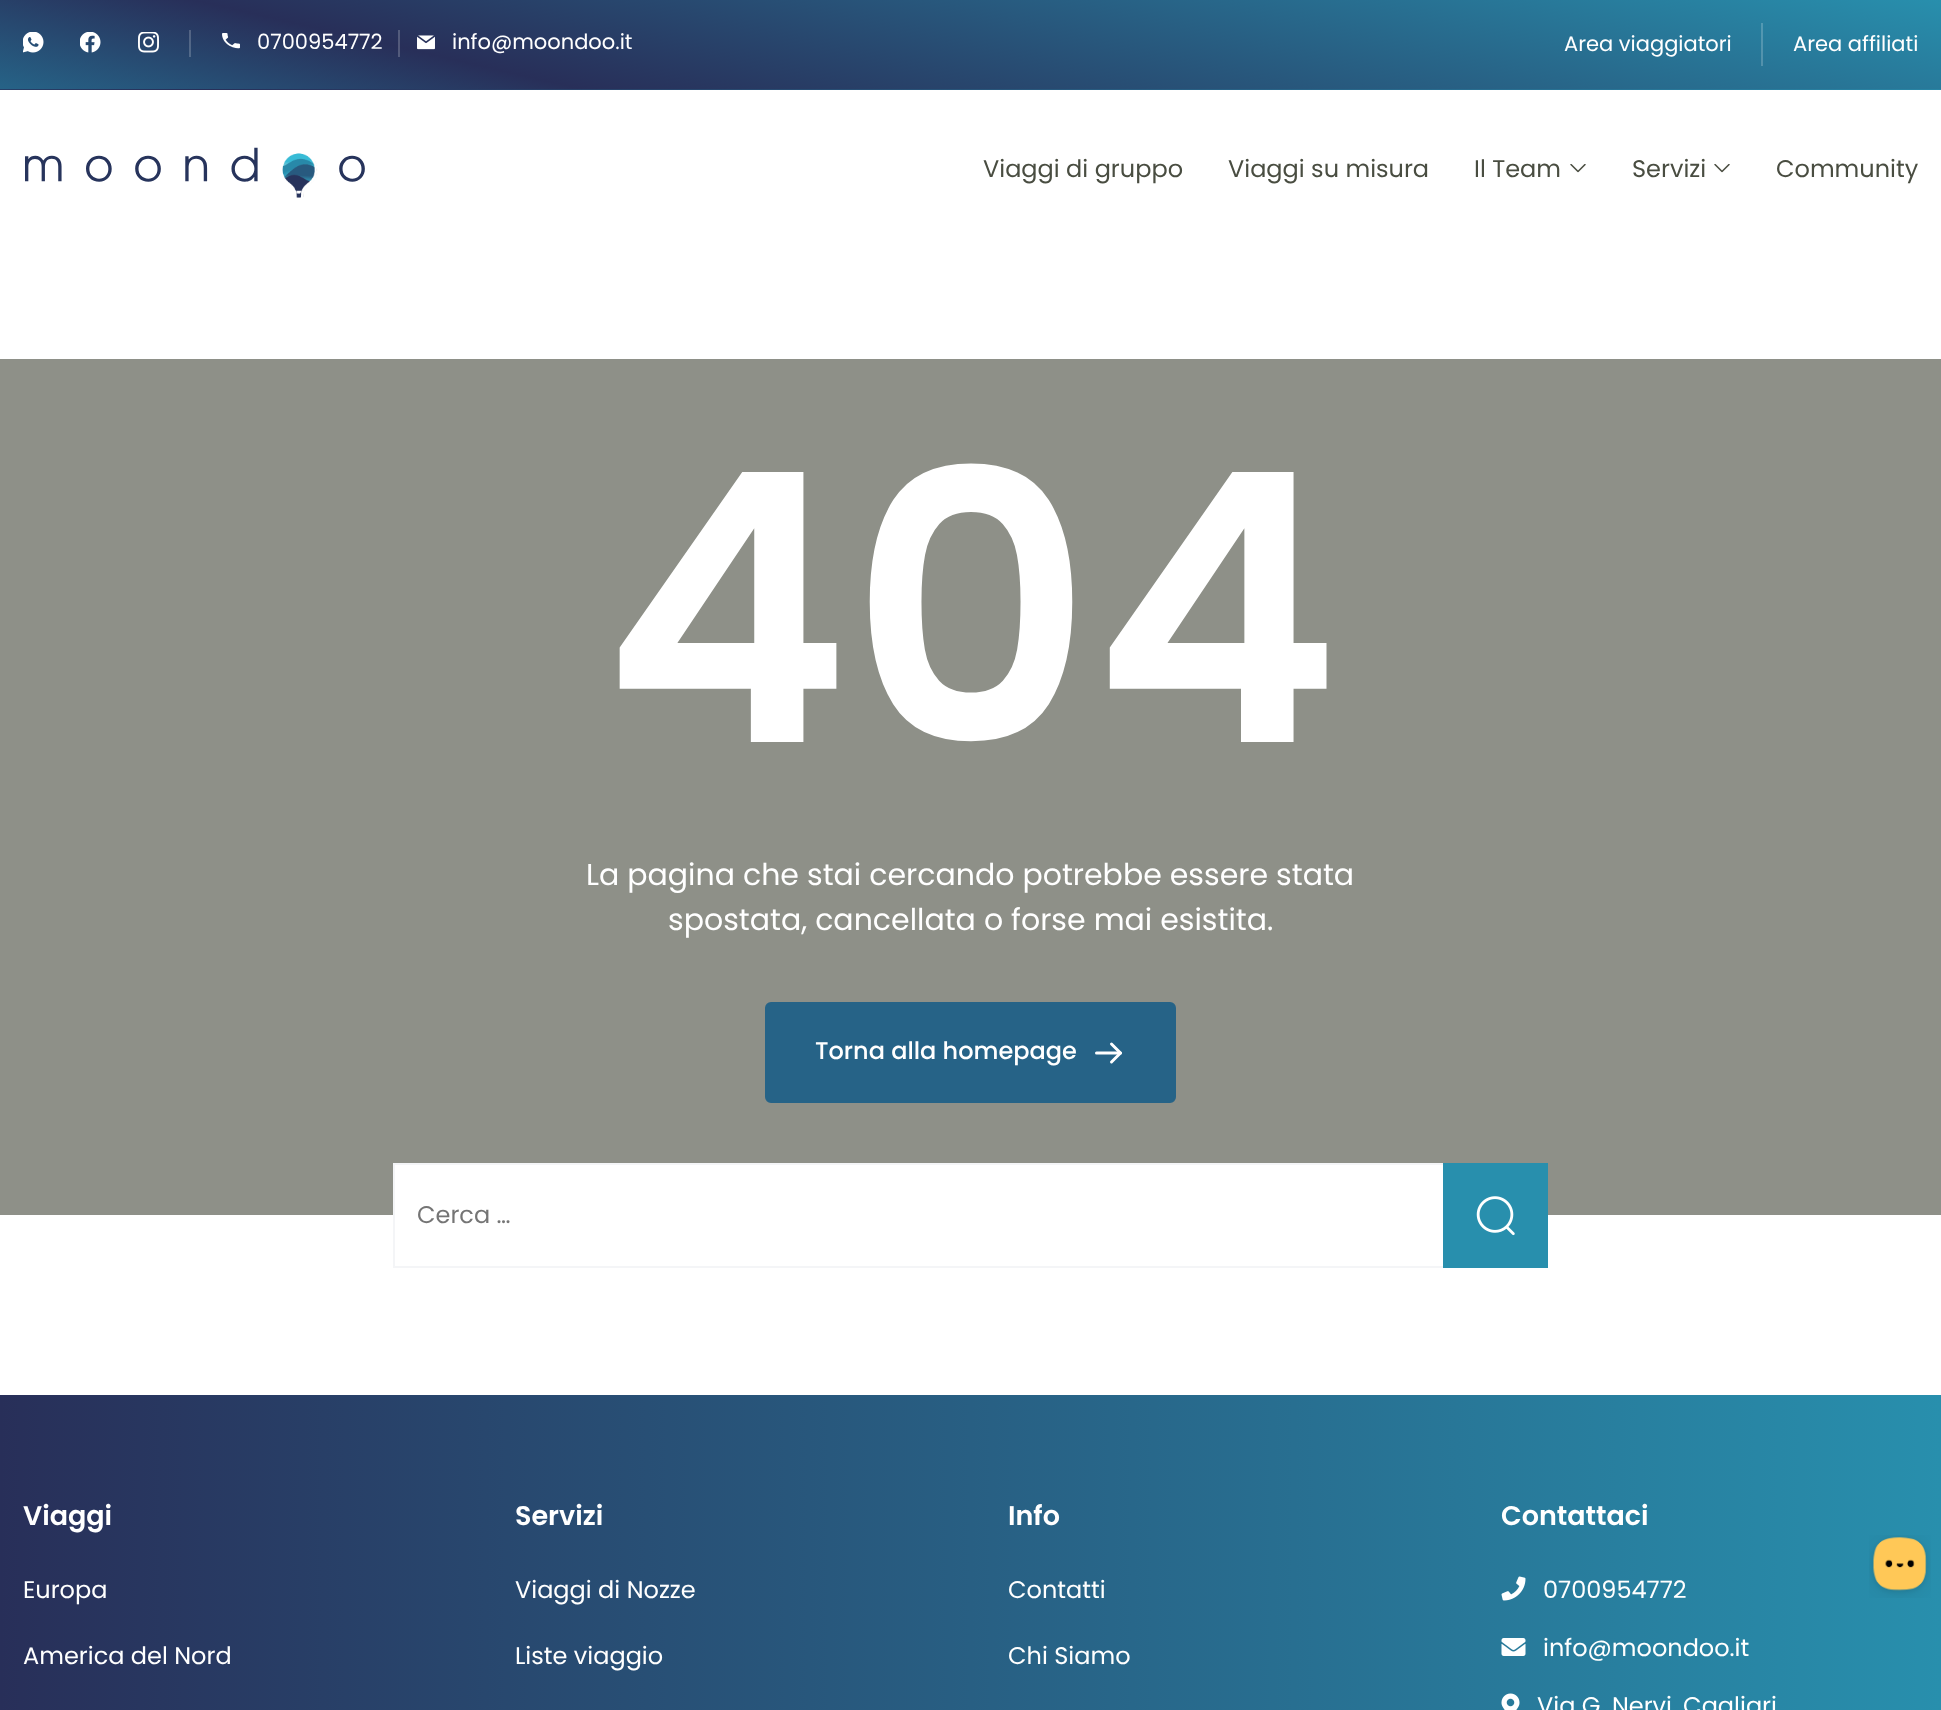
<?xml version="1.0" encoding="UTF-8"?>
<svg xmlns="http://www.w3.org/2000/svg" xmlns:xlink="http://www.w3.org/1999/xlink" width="1941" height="1710">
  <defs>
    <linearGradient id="g1" gradientUnits="userSpaceOnUse" x1="912" y1="299" x2="1029" y2="-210"><stop offset="0" stop-color="#266387" /><stop offset="0.25" stop-color="#282f59" /><stop offset="1" stop-color="#288fad" /></linearGradient>
    <linearGradient id="g2" gradientUnits="userSpaceOnUse" x1="912" y1="299" x2="1029" y2="-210"><stop offset="0" stop-color="#51829f" /><stop offset="0.25" stop-color="#53597a" /><stop offset="1" stop-color="#53a5bd" /></linearGradient>
    <linearGradient id="g3" gradientUnits="userSpaceOnUse" x1="912" y1="387" x2="1029" y2="-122"><stop offset="0" stop-color="#265e82" /><stop offset="0.25" stop-color="#282f59" /><stop offset="1" stop-color="#2885a5" /></linearGradient>
    <linearGradient id="g4" gradientUnits="userSpaceOnUse" x1="0" y1="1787" x2="1941" y2="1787"><stop offset="0" stop-color="#282f59" /><stop offset="1" stop-color="#288fad" /></linearGradient>
  </defs>
  <rect width="100%" height="100%" fill="#ffffff" />
  <rect width="1941" height="89" fill="url(#g1)" />
  <rect x="1761" y="23" width="2" height="43" fill="url(#g2)" />
  <rect x="398" y="30" width="2" height="27" fill="url(#g2)" />
  <rect x="189" y="30" width="2" height="27" fill="url(#g2)" />
  <rect y="89" width="1941" height="1" fill="url(#g3)" />
  <image x="23" y="32" width="21" height="21" xlink:href="image1.png" />
  <image x="80" y="32" width="21" height="21" xlink:href="image2.png" />
  <image x="138" y="32" width="21" height="21" xlink:href="image3.png" />
  <image x="222" y="33" width="18" height="16" xlink:href="image4.png" />
  <image x="417" y="35" width="18" height="15" xlink:href="image5.png" />
  <image x="25" y="147" width="340" height="51" xlink:href="image6.png" />
  <image x="1570" y="164" width="16" height="9" xlink:href="image7.png" />
  <image x="1714" y="164" width="16" height="9" xlink:href="image7.png" />
  <rect y="359" width="1941" height="856" fill="#8e9088" />
  <rect x="766" y="1003" width="409" height="99" rx="5" fill="#266387" stroke="#266387" stroke-width="2" />
  <path d="M 1096.5 1053 h 24" fill="none" stroke="#ffffff" stroke-width="3" stroke-linecap="round" />
  <path d="M 1111.5 1044 l 9 9 l -9 9" fill="none" stroke="#ffffff" stroke-width="3" stroke-linecap="round" stroke-linejoin="round" />
  <rect x="395" y="1165" width="1048" height="50" fill="#ffffff" />
  <rect x="394" y="1164" width="1153" height="103" fill="none" stroke="#f4f5f7" stroke-width="2" />
  <rect x="1443" y="1163" width="105" height="105" fill="#288fad" />
  <image x="1476" y="1196" width="39" height="40" xlink:href="image8.png" />
  <rect y="1395" width="1941" height="315" fill="url(#g4)" />
  <image x="1501" y="1576" width="25" height="25" xlink:href="image9.png" />
  <image x="1501" y="1638" width="25" height="18" xlink:href="image10.png" />
  <image x="1501" y="1693" width="19" height="17" xlink:href="image11.png" />
  <image x="1869" y="1535" width="62" height="63" xlink:href="image12.png" />
  <text x="257" y="49" style="font-family: Poppins; font-size: 21px; fill: #ffffff">0700954772</text>
  <text x="452" y="49" style="font-family: Poppins; font-size: 21px; fill: #ffffff">info@moondoo.it</text>
  <text x="1564" y="51" style="font-family: Poppins; font-size: 21px; fill: #ffffff">Area viaggiatori</text>
  <text x="1793" y="51" style="font-family: Poppins; font-size: 21px; fill: #ffffff">Area affiliati</text>
  <text x="983" y="177" style="font-family: Poppins; font-size: 24px; fill: #494d41">Viaggi di gruppo</text>
  <text x="1228" y="177" style="font-family: Poppins; font-size: 24px; fill: #494d41">Viaggi su misura</text>
  <text x="1474" y="177" style="font-family: Poppins; font-size: 24px; fill: #494d41">Il Team</text>
  <text x="1632" y="177" style="font-family: Poppins; font-size: 24px; fill: #494d41">Servizi</text>
  <text x="1776" y="177" style="font-family: Poppins; font-size: 24px; fill: #494d41">Community</text>
  <text x="602" y="742" style="font-family: Poppins; font-size: 375px; font-weight: 600; fill: #ffffff">404</text>
  <text x="586" y="885" style="font-family: Poppins; font-size: 30px; fill: #ffffff">La pagina che stai cercando potrebbe essere stata</text>
  <text x="668" y="930" style="font-family: Poppins; font-size: 30px; fill: #ffffff">spostata, cancellata o forse mai esistita.</text>
  <text x="815" y="1059" style="font-family: Poppins; font-size: 24px; font-weight: 500; fill: #ffffff">Torna alla homepage</text>
  <text x="417" y="1223" style="font-family: Poppins; font-size: 24px; fill: #757575">Cerca …</text>
  <text x="23" y="1525" style="font-family: Poppins; font-size: 27px; font-weight: 600; fill: #ffffff">Viaggi</text>
  <text x="23" y="1598" style="font-family: Poppins; font-size: 24px; fill: #ffffff">Europa</text>
  <text x="23" y="1664" style="font-family: Poppins; font-size: 24px; fill: #ffffff">America del Nord</text>
  <text x="515" y="1525" style="font-family: Poppins; font-size: 27px; font-weight: 600; fill: #ffffff">Servizi</text>
  <text x="515" y="1598" style="font-family: Poppins; font-size: 24px; fill: #ffffff">Viaggi di Nozze</text>
  <text x="515" y="1664" style="font-family: Poppins; font-size: 24px; fill: #ffffff">Liste viaggio</text>
  <text x="1008" y="1525" style="font-family: Poppins; font-size: 27px; font-weight: 600; fill: #ffffff">Info</text>
  <text x="1008" y="1598" style="font-family: Poppins; font-size: 24px; fill: #ffffff">Contatti</text>
  <text x="1008" y="1664" style="font-family: Poppins; font-size: 24px; fill: #ffffff">Chi Siamo</text>
  <text x="1501" y="1525" style="font-family: Poppins; font-size: 27px; font-weight: 600; fill: #ffffff">Contattaci</text>
  <text x="1543" y="1598" style="font-family: Poppins; font-size: 24px; fill: #ffffff">0700954772</text>
  <text x="1543" y="1656" style="font-family: Poppins; font-size: 24px; fill: #ffffff">info@moondoo.it</text>
  <text x="1537" y="1714" style="font-family: Poppins; font-size: 24px; fill: #ffffff">Via G. Nervi, Cagliari</text>
</svg>
